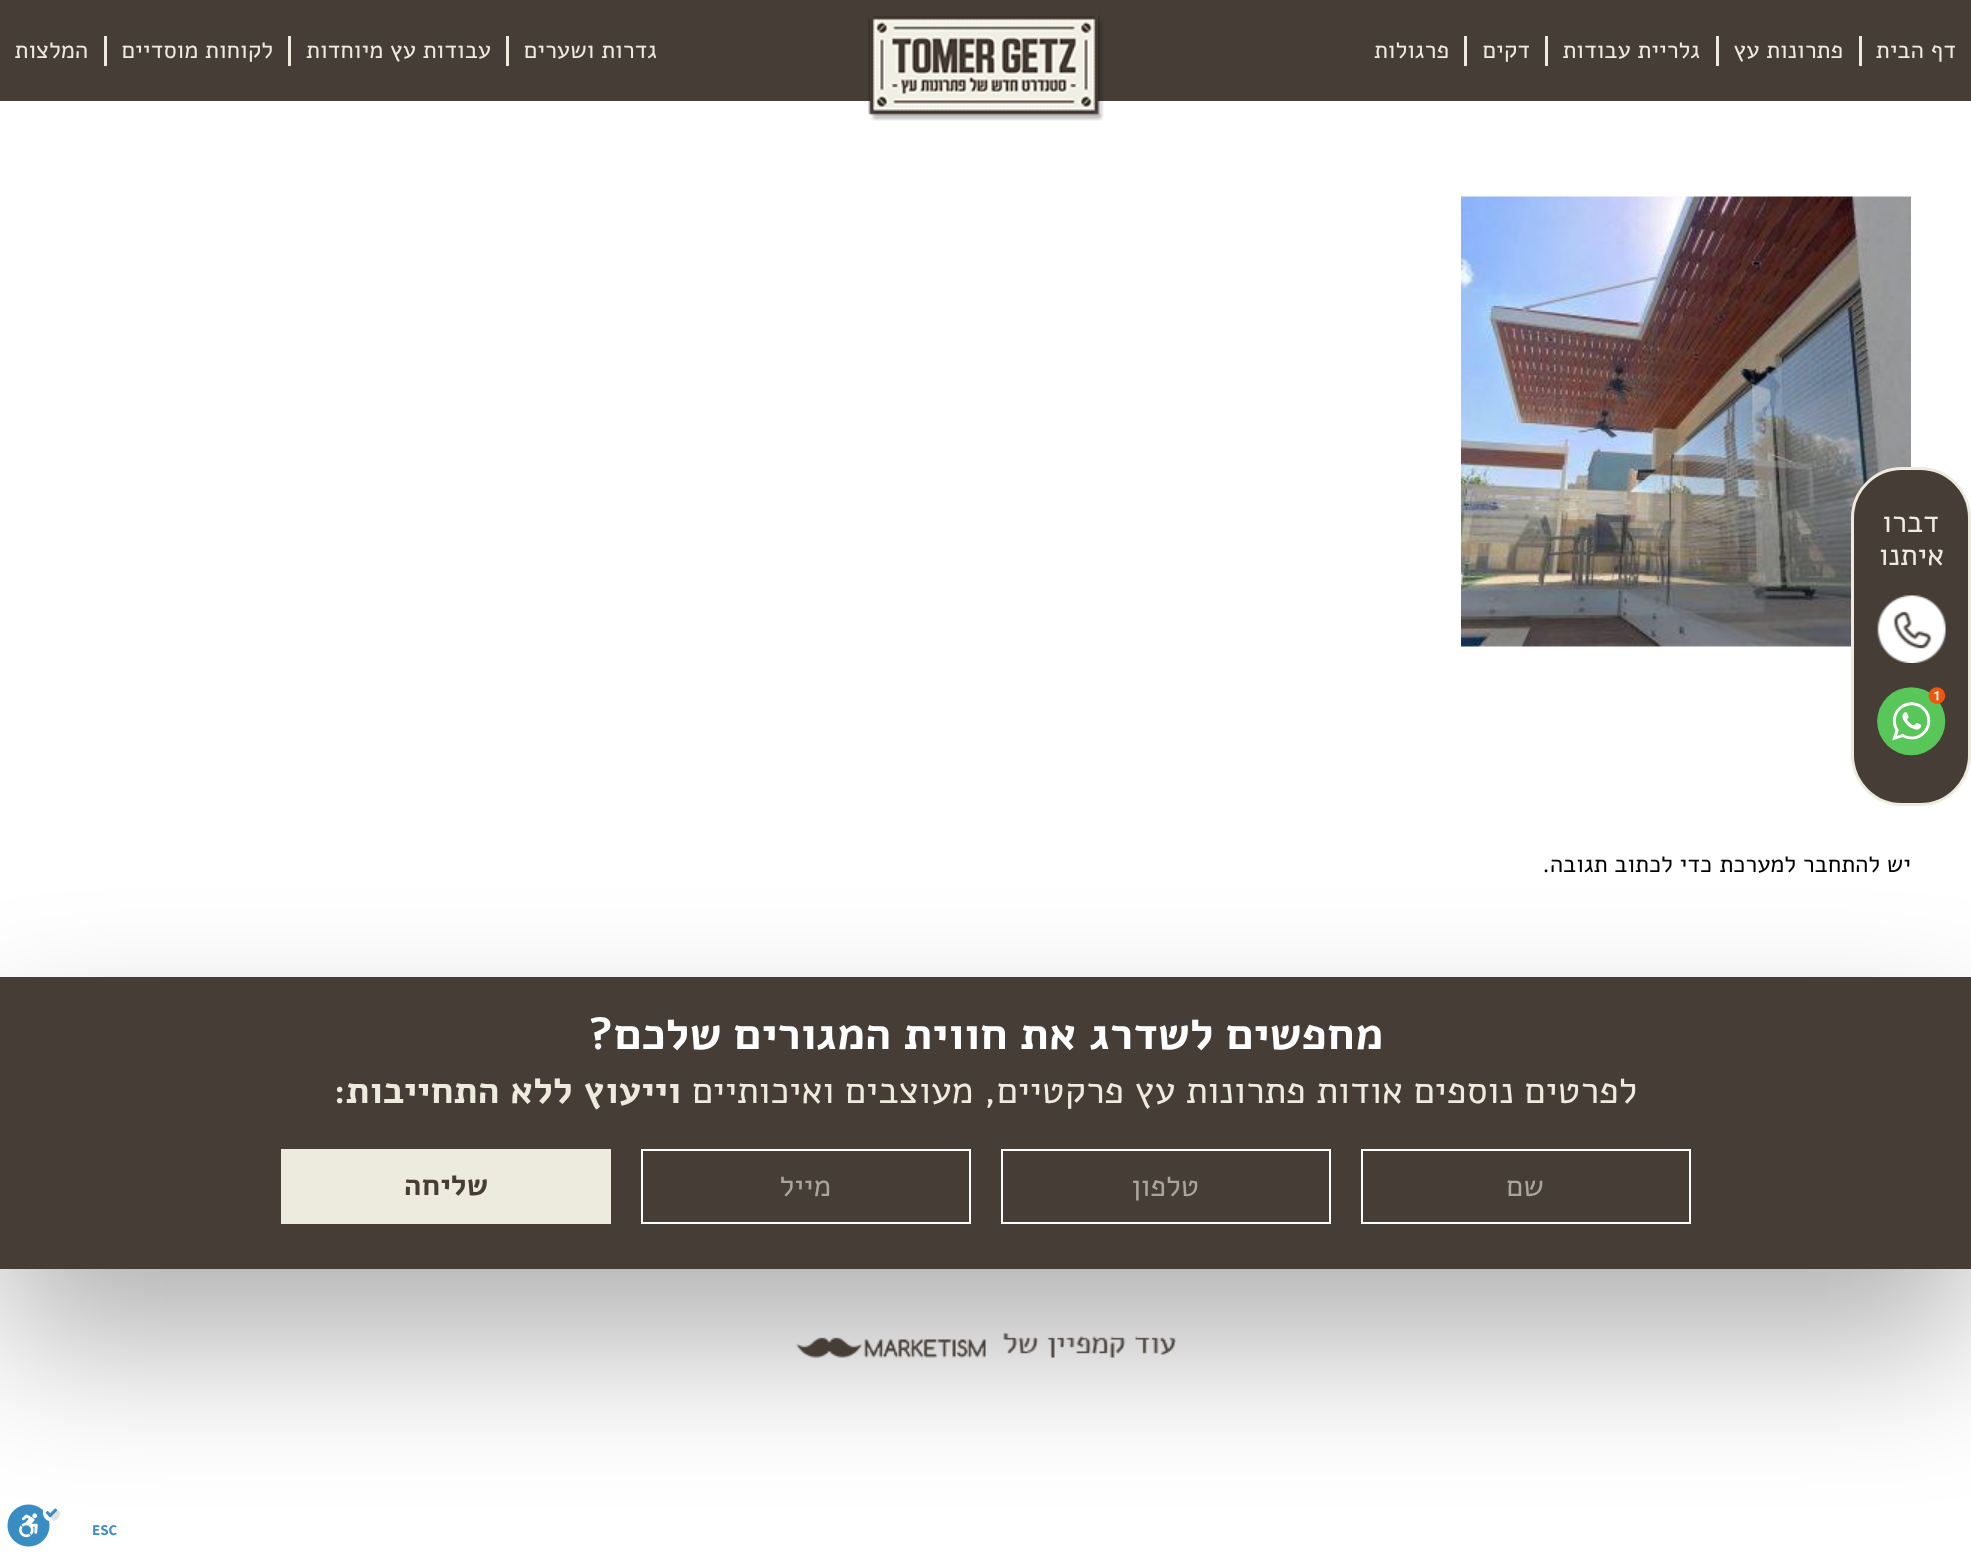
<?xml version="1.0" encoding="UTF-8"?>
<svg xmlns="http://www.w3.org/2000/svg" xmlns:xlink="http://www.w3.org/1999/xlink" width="1971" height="1553">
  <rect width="100%" height="100%" fill="#ffffff" />
  <rect width="1971" height="101" fill="#453d36" />
  <rect x="1859" y="36" width="3" height="30" fill="#edebdd" />
  <rect x="1716" y="36" width="3" height="30" fill="#edebdd" />
  <rect x="1545" y="36" width="3" height="30" fill="#edebdd" />
  <rect x="1464" y="36" width="3" height="30" fill="#edebdd" />
  <image x="868" y="15" width="236" height="106" xlink:href="image1.png" />
  <rect x="506" y="36" width="3" height="30" fill="#edebdd" />
  <rect x="288" y="36" width="3" height="30" fill="#edebdd" />
  <rect x="104" y="36" width="3" height="30" fill="#edebdd" />
  <image x="1461" y="196" width="450" height="451" xlink:href="image5.png" />
  <rect x="1852.5" y="468.5" width="117" height="336" rx="49.5" fill="#453d36" stroke="#edebdd" stroke-width="3" />
  <image x="1877" y="595" width="69" height="68" xlink:href="image2.png" />
  <image x="1877" y="687" width="69" height="69" xlink:href="image3.png" />
  <rect y="1052" width="1971" height="292" fill="#000000" fill-opacity="0.3" filter="blur(75px)" />
  <rect y="977" width="1971" height="292" fill="#453d36" />
  <rect x="1362" y="1150" width="328" height="73" fill="none" stroke="#ffffff" stroke-width="2" />
  <rect x="1002" y="1150" width="328" height="73" fill="none" stroke="#ffffff" stroke-width="2" />
  <rect x="642" y="1150" width="328" height="73" fill="none" stroke="#ffffff" stroke-width="2" />
  <rect x="281" y="1149" width="330" height="75" fill="#edebdd" />
  <image x="796" y="1333" width="380" height="25" xlink:href="image4.png" />
  <image x="7" y="1504" width="53" height="43" xlink:href="image6.png" />
  <text x="1956" y="58" style="font-family: Alef; font-size: 24px; direction: rtl; fill: #edebdd">דף הבית</text>
  <text x="1843" y="58" style="font-family: Alef; font-size: 24px; direction: rtl; fill: #edebdd">פתרונות עץ</text>
  <text x="1700" y="58" style="font-family: Alef; font-size: 24px; direction: rtl; fill: #edebdd">גלריית עבודות</text>
  <text x="1530" y="58" style="font-family: Alef; font-size: 24px; direction: rtl; fill: #edebdd">דקים</text>
  <text x="1449" y="58" style="font-family: Alef; font-size: 24px; direction: rtl; fill: #edebdd">פרגולות</text>
  <text x="657" y="58" style="font-family: Alef; font-size: 24px; direction: rtl; fill: #edebdd">גדרות ושערים</text>
  <text x="491" y="58" style="font-family: Alef; font-size: 24px; direction: rtl; fill: #edebdd">עבודות עץ מיוחדות</text>
  <text x="273" y="58" style="font-family: Alef; font-size: 24px; direction: rtl; fill: #edebdd">לקוחות מוסדיים</text>
  <text x="88" y="58" style="font-family: Alef; font-size: 24px; direction: rtl; fill: #edebdd">המלצות</text>
  <text x="1939" y="532" style="font-family: Alef; font-size: 30px; direction: rtl; fill: #edebdd">דברו</text>
  <text x="1944" y="565" style="font-family: Alef; font-size: 30px; direction: rtl; fill: #edebdd">איתנו</text>
  <text x="1383" y="1049" style="font-family: Alef; font-size: 45px; font-weight: bold; direction: rtl; fill: #ffffff">מחפשים לשדרג את חווית המגורים שלכם?</text>
  <text x="1637" y="1103" style="font-family: Alef; font-size: 37.5px; direction: rtl; fill: #edebdd">לפרטים נוספים אודות פתרונות עץ פרקטיים, מעוצבים ואיכותיים</text>
  <text x="681" y="1103" style="font-family: Alef; font-size: 37.5px; font-weight: bold; direction: rtl; fill: #edebdd">וייעוץ ללא התחייבות:</text>
  <text x="1544" y="1196" style="font-family: Alef; font-size: 30px; direction: rtl; fill: #aaa59a">שם</text>
  <text x="1199" y="1196" style="font-family: Alef; font-size: 30px; direction: rtl; fill: #aaa59a">טלפון</text>
  <text x="831" y="1196" style="font-family: Alef; font-size: 30px; direction: rtl; fill: #aaa59a">מייל</text>
  <text x="488" y="1195" style="font-family: Alef; font-size: 30px; font-weight: bold; direction: rtl; fill: #453d36">שליחה</text>
  <text x="1911" y="872" style="font-family: Alef; font-size: 24px; direction: rtl; fill: #000000">יש</text>
  <text x="1880" y="872" style="font-family: Alef; font-size: 24px; direction: rtl; fill: #000000">להתחבר למערכת</text>
  <text x="1712" y="872" style="font-family: Alef; font-size: 24px; direction: rtl; fill: #000000">כדי לכתוב תגובה.</text>
  <text x="92" y="1535" style="font-family: Assistant; font-size: 15px; font-weight: bold; fill: #3a8dc2">ESC</text>
</svg>
